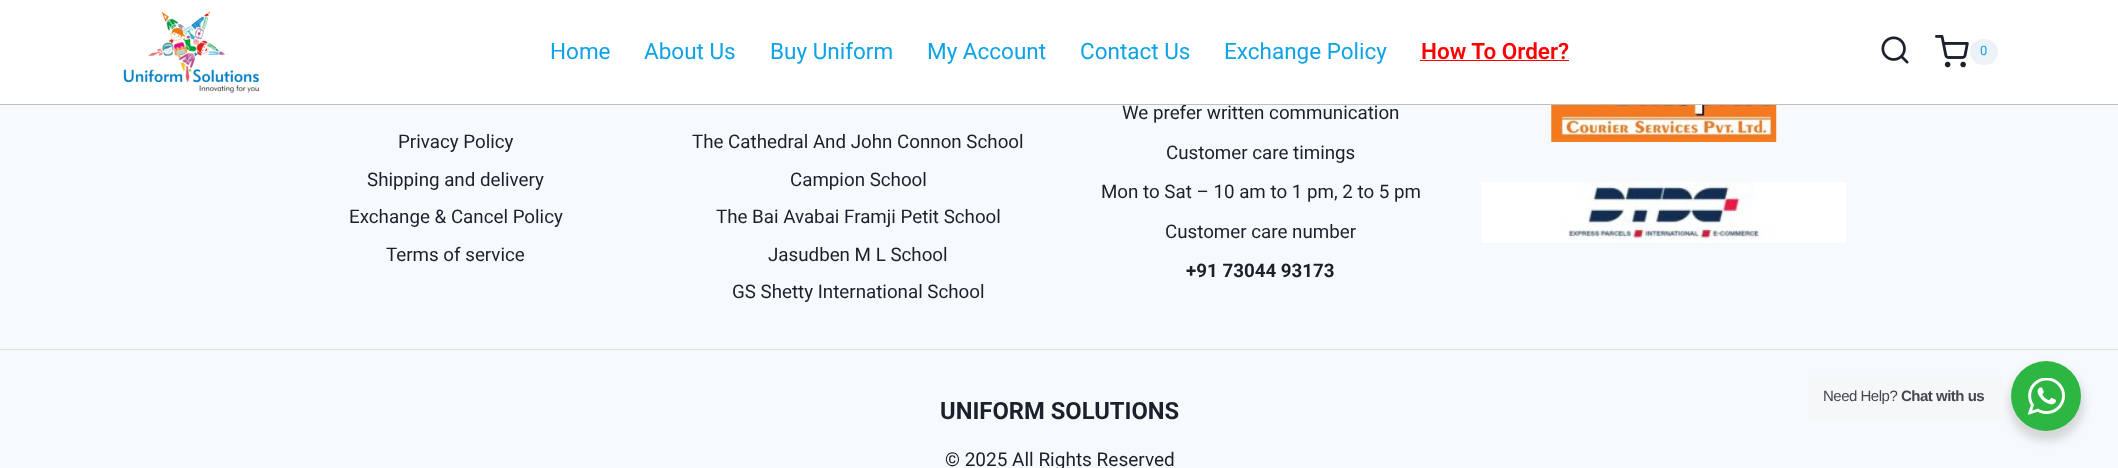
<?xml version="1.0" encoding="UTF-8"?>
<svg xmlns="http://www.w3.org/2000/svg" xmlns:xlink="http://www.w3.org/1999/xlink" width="2118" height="468">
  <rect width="100%" height="100%" fill="#f7fafc" />
  <rect width="2118" height="104" fill="#ffffff" />
  <image x="123" y="11" width="136" height="82" xlink:href="image1.png" />
  <rect x="1420" y="60" width="149" height="1" fill="#ff0000" />
  <image x="1881" y="36" width="28" height="28" xlink:href="image2.png" />
  <image x="1935" y="35" width="34" height="33" xlink:href="image3.png" />
  <rect x="1970" y="39" width="28" height="26" rx="13" fill="#edf2f7" />
  <rect y="349" width="2118" height="1" fill="#e1e1e1" />
  <image x="1551" y="105" width="226" height="37" xlink:href="image4.png" />
  <image x="1481" y="182" width="365" height="61" xlink:href="image5.png" />
  <rect x="2009" y="366" width="75" height="75" rx="37.5" fill="#000000" fill-opacity="0.14" filter="blur(5px)" />
  <rect x="1808" y="375" width="195" height="43" rx="5" fill="#f5f7f9" />
  <circle cx="2046" cy="396" r="35" fill="#2db742" />
  <image x="2028" y="378" width="37" height="37" xlink:href="image6.png" />
  <text x="550" y="59" style="font-family: Roboto; font-size: 22.5px; fill: #0fa2e5">Home</text>
  <text x="644" y="59" style="font-family: Roboto; font-size: 22.5px; fill: #0fa2e5">About Us</text>
  <text x="770" y="59" style="font-family: Roboto; font-size: 22.5px; fill: #0fa2e5">Buy Uniform</text>
  <text x="927" y="59" style="font-family: Roboto; font-size: 22.5px; fill: #0fa2e5">My Account</text>
  <text x="1080" y="59" style="font-family: Roboto; font-size: 22.5px; fill: #0fa2e5">Contact Us</text>
  <text x="1224" y="59" style="font-family: Roboto; font-size: 22.5px; fill: #0fa2e5">Exchange Policy</text>
  <text x="1421" y="59" style="font-family: Roboto; font-size: 22.5px; font-weight: 600; fill: #ff0000">How To Order?</text>
  <text x="1980" y="55" style="font-family: Roboto; font-size: 13px; fill: #0fa2e5">0</text>
  <text x="398" y="148" style="font-family: Roboto; font-size: 18.75px; fill: #1a202c">Privacy Policy</text>
  <text x="367" y="186" style="font-family: Roboto; font-size: 18.75px; fill: #1a202c">Shipping and delivery</text>
  <text x="349" y="223" style="font-family: Roboto; font-size: 18.75px; fill: #1a202c">Exchange &amp; Cancel Policy</text>
  <text x="386" y="261" style="font-family: Roboto; font-size: 18.75px; fill: #1a202c">Terms of service</text>
  <text x="692" y="148" style="font-family: Roboto; font-size: 18.75px; fill: #1a202c">The Cathedral And John Connon School</text>
  <text x="790" y="186" style="font-family: Roboto; font-size: 18.75px; fill: #1a202c">Campion School</text>
  <text x="716" y="223" style="font-family: Roboto; font-size: 18.75px; fill: #1a202c">The Bai Avabai Framji Petit School</text>
  <text x="768" y="261" style="font-family: Roboto; font-size: 18.75px; fill: #1a202c">Jasudben M L School</text>
  <text x="732" y="298" style="font-family: Roboto; font-size: 18.75px; fill: #1a202c">GS Shetty International School</text>
  <text x="1122" y="119" style="font-family: Roboto; font-size: 18.75px; fill: #1a202c">We prefer written communication</text>
  <rect y="104" width="2118" height="1" fill="#bfbfbf" />
  <text x="1166" y="159" style="font-family: Roboto; font-size: 18.75px; fill: #1a202c">Customer care timings</text>
  <text x="1101" y="198" style="font-family: Roboto; font-size: 18.75px; fill: #1a202c">Mon to Sat – 10 am to 1 pm, 2 to 5 pm</text>
  <text x="1165" y="238" style="font-family: Roboto; font-size: 18.75px; fill: #1a202c">Customer care number</text>
  <text x="1186" y="277" style="font-family: Roboto; font-size: 18.75px; font-weight: bold; fill: #1a202c">+91 73044 93173</text>
  <text x="940" y="419" style="font-family: Roboto; font-size: 23.75px; font-weight: bold; fill: #1a202c">UNIFORM SOLUTIONS</text>
  <text x="945" y="466" style="font-family: Roboto; font-size: 19px; fill: #1a202c">© 2025 All Rights Reserved</text>
  <text x="1823" y="401" style="font-family: Liberation Sans; font-size: 15px; letter-spacing: -0.5px; fill: #43474e">Need Help?</text>
  <text x="1901" y="401" style="font-family: Liberation Sans; font-size: 15px; font-weight: bold; letter-spacing: -0.5px; fill: #43474e">Chat with us</text>
</svg>
